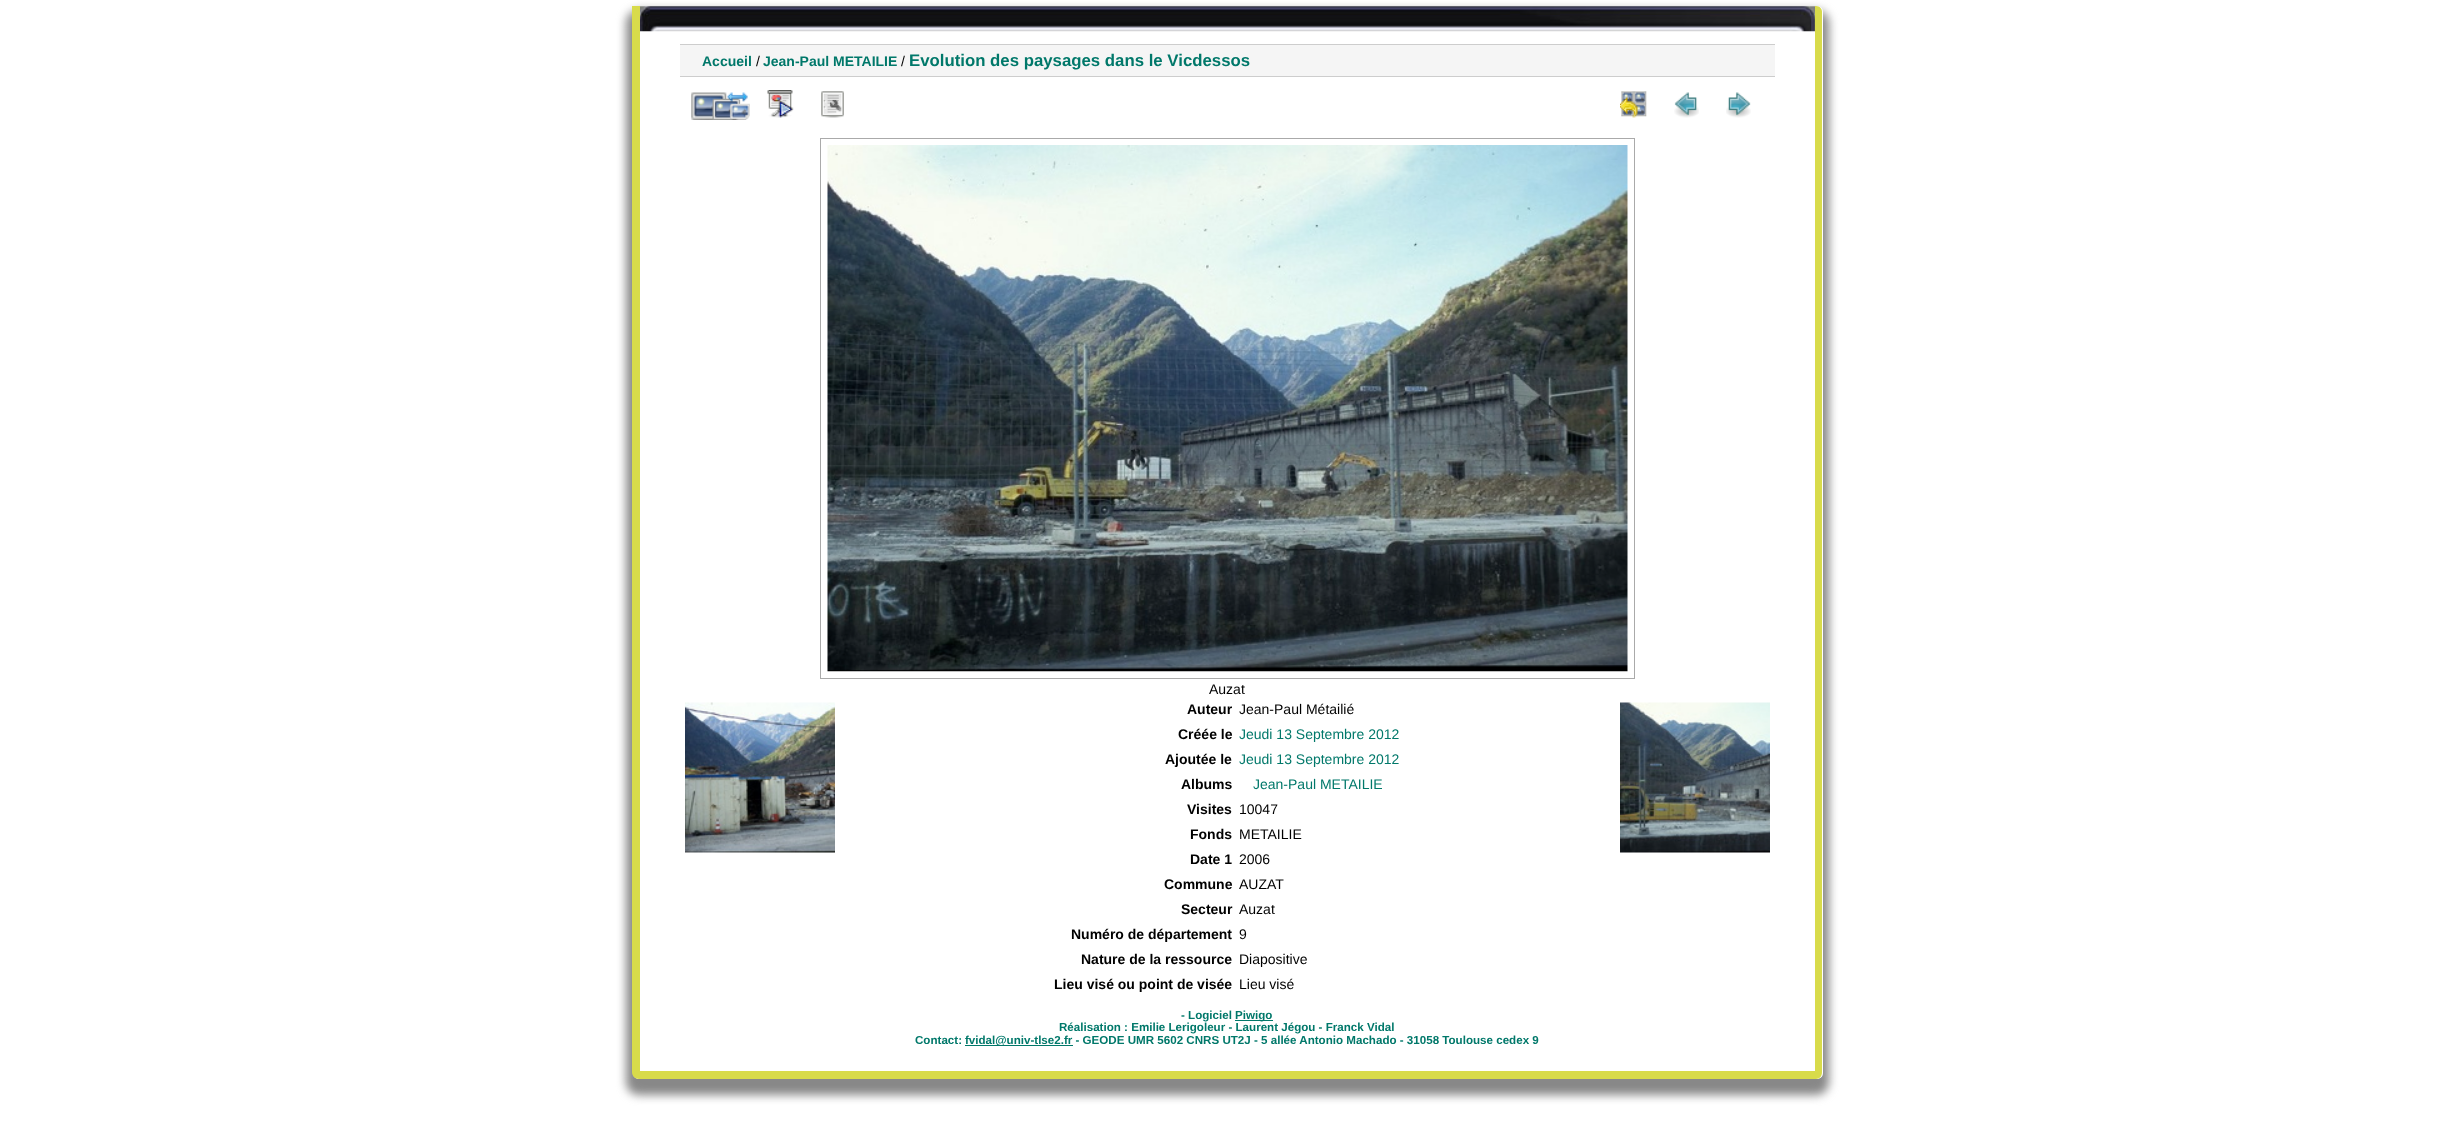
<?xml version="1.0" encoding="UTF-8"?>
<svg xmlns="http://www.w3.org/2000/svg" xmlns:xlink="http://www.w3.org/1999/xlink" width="2453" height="1148">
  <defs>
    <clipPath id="clip1"><path d="M 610 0 h 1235 v 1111 h -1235 z m 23 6 h 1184 c 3.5 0 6 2.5 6 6 v 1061 c 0 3.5 -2.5 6 -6 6 h -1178 c -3.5 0 -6 -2.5 -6 -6 z" clip-rule="evenodd" /></clipPath>
  </defs>
  <rect width="100%" height="100%" fill="#ffffff" />
  <g clip-path="url(#clip1)">
    <rect x="626" y="10" width="1203" height="1085" rx="13" fill="#888888" filter="blur(5px)" />
  </g>
  <path d="M 632 6 h 1184 c 4 0 6 3 6 6 v 1060 c 0 4 -2 7 -6 7 h -1177 c -4 0 -7 -3 -7 -7 z m 8 0 h 1175 v 1065 h -1175 z" fill="#d8db4b" fill-rule="evenodd" />
  <image x="640" y="6" width="1175" height="26" xlink:href="image1.png" />
  <rect x="680" y="45" width="1095" height="31" fill="#f5f5f5" />
  <rect x="680" y="44" width="1095" height="1" fill="#cdcdcd" />
  <rect x="680" y="76" width="1095" height="1" fill="#cdcdcd" />
  <image x="691" y="92" width="59" height="28" xlink:href="image2.png" />
  <image x="767" y="90" width="27" height="28" xlink:href="image3.png" />
  <image x="821" y="91" width="23" height="27" xlink:href="image4.png" />
  <image x="1620" y="91" width="27" height="27" xlink:href="image5.png" />
  <image x="1674" y="92" width="25" height="26" xlink:href="image6.png" />
  <image x="1726" y="92" width="25" height="26" xlink:href="image7.png" />
  <rect x="820.5" y="138.5" width="814" height="540" fill="none" stroke="#aaaaaa" />
  <image x="827" y="145" width="801" height="527" xlink:href="image8.png" />
  <image x="685" y="702" width="150" height="151" xlink:href="image9.png" />
  <image x="1620" y="702" width="150" height="151" xlink:href="image10.png" />
  <rect x="1235" y="1020" width="38" height="1" fill="#00786a" />
  <rect x="965" y="1045" width="108" height="1" fill="#00786a" />
  <text x="702" y="66" style="font-family: Liberation Sans; font-size: 14px; font-weight: bold; fill: #00786a">Accueil</text>
  <text x="756" y="66" style="font-family: Liberation Sans; font-size: 14px; fill: #000000">/</text>
  <text x="763" y="66" style="font-family: Liberation Sans; font-size: 14px; font-weight: bold; fill: #00786a">Jean-Paul METAILIE</text>
  <text x="901" y="66" style="font-family: Liberation Sans; font-size: 14px; fill: #000000">/</text>
  <text x="909" y="66" style="font-family: Liberation Sans; font-size: 16.8px; font-weight: bold; fill: #00786a">Evolution des paysages dans le Vicdessos</text>
  <text x="1209" y="694" style="font-family: Liberation Sans; font-size: 14px; fill: #000000">Auzat</text>
  <text x="1187" y="714" style="font-family: Liberation Sans; font-size: 14px; font-weight: bold; fill: #000000">Auteur</text>
  <text x="1239" y="714" style="font-family: Liberation Sans; font-size: 14px; fill: #000000">Jean-Paul Métailié</text>
  <text x="1178" y="739" style="font-family: Liberation Sans; font-size: 14px; font-weight: bold; fill: #000000">Créée le</text>
  <text x="1239" y="739" style="font-family: Liberation Sans; font-size: 14px; fill: #00786a">Jeudi 13 Septembre 2012</text>
  <text x="1165" y="764" style="font-family: Liberation Sans; font-size: 14px; font-weight: bold; fill: #000000">Ajoutée le</text>
  <text x="1239" y="764" style="font-family: Liberation Sans; font-size: 14px; fill: #00786a">Jeudi 13 Septembre 2012</text>
  <text x="1181" y="789" style="font-family: Liberation Sans; font-size: 14px; font-weight: bold; fill: #000000">Albums</text>
  <text x="1253" y="789" style="font-family: Liberation Sans; font-size: 14px; fill: #00786a">Jean-Paul METAILIE</text>
  <text x="1187" y="814" style="font-family: Liberation Sans; font-size: 14px; font-weight: bold; fill: #000000">Visites</text>
  <text x="1239" y="814" style="font-family: Liberation Sans; font-size: 14px; fill: #000000">10047</text>
  <text x="1190" y="839" style="font-family: Liberation Sans; font-size: 14px; font-weight: bold; fill: #000000">Fonds</text>
  <text x="1239" y="839" style="font-family: Liberation Sans; font-size: 14px; fill: #000000">METAILIE</text>
  <text x="1190" y="864" style="font-family: Liberation Sans; font-size: 14px; font-weight: bold; fill: #000000">Date 1</text>
  <text x="1239" y="864" style="font-family: Liberation Sans; font-size: 14px; fill: #000000">2006</text>
  <text x="1164" y="889" style="font-family: Liberation Sans; font-size: 14px; font-weight: bold; fill: #000000">Commune</text>
  <text x="1239" y="889" style="font-family: Liberation Sans; font-size: 14px; fill: #000000">AUZAT</text>
  <text x="1181" y="914" style="font-family: Liberation Sans; font-size: 14px; font-weight: bold; fill: #000000">Secteur</text>
  <text x="1239" y="914" style="font-family: Liberation Sans; font-size: 14px; fill: #000000">Auzat</text>
  <text x="1071" y="939" style="font-family: Liberation Sans; font-size: 14px; font-weight: bold; fill: #000000">Numéro de département</text>
  <text x="1239" y="939" style="font-family: Liberation Sans; font-size: 14px; fill: #000000">9</text>
  <text x="1081" y="964" style="font-family: Liberation Sans; font-size: 14px; font-weight: bold; fill: #000000">Nature de la ressource</text>
  <text x="1239" y="964" style="font-family: Liberation Sans; font-size: 14px; fill: #000000">Diapositive</text>
  <text x="1054" y="989" style="font-family: Liberation Sans; font-size: 14px; font-weight: bold; fill: #000000">Lieu visé ou point de visée</text>
  <text x="1239" y="989" style="font-family: Liberation Sans; font-size: 14px; fill: #000000">Lieu visé</text>
  <text x="1181" y="1019" style="font-family: Liberation Sans; font-size: 11.6px; font-weight: bold; fill: #00786a">- Logiciel</text>
  <text x="1235" y="1019" style="font-family: Liberation Sans; font-size: 11.6px; font-weight: bold; fill: #00786a">Piwigo</text>
  <text x="1059" y="1031" style="font-family: Liberation Sans; font-size: 11.6px; font-weight: bold; fill: #00786a">Réalisation : Emilie Lerigoleur - Laurent Jégou - Franck Vidal</text>
  <text x="915" y="1044" style="font-family: Liberation Sans; font-size: 11.6px; font-weight: bold; fill: #00786a">Contact:</text>
  <text x="965" y="1044" style="font-family: Liberation Sans; font-size: 11.6px; font-weight: bold; fill: #00786a">fvidal@univ-tlse2.fr - GEODE UMR 5602 CNRS UT2J - 5 allée Antonio Machado - 31058 Toulouse cedex 9</text>
</svg>
